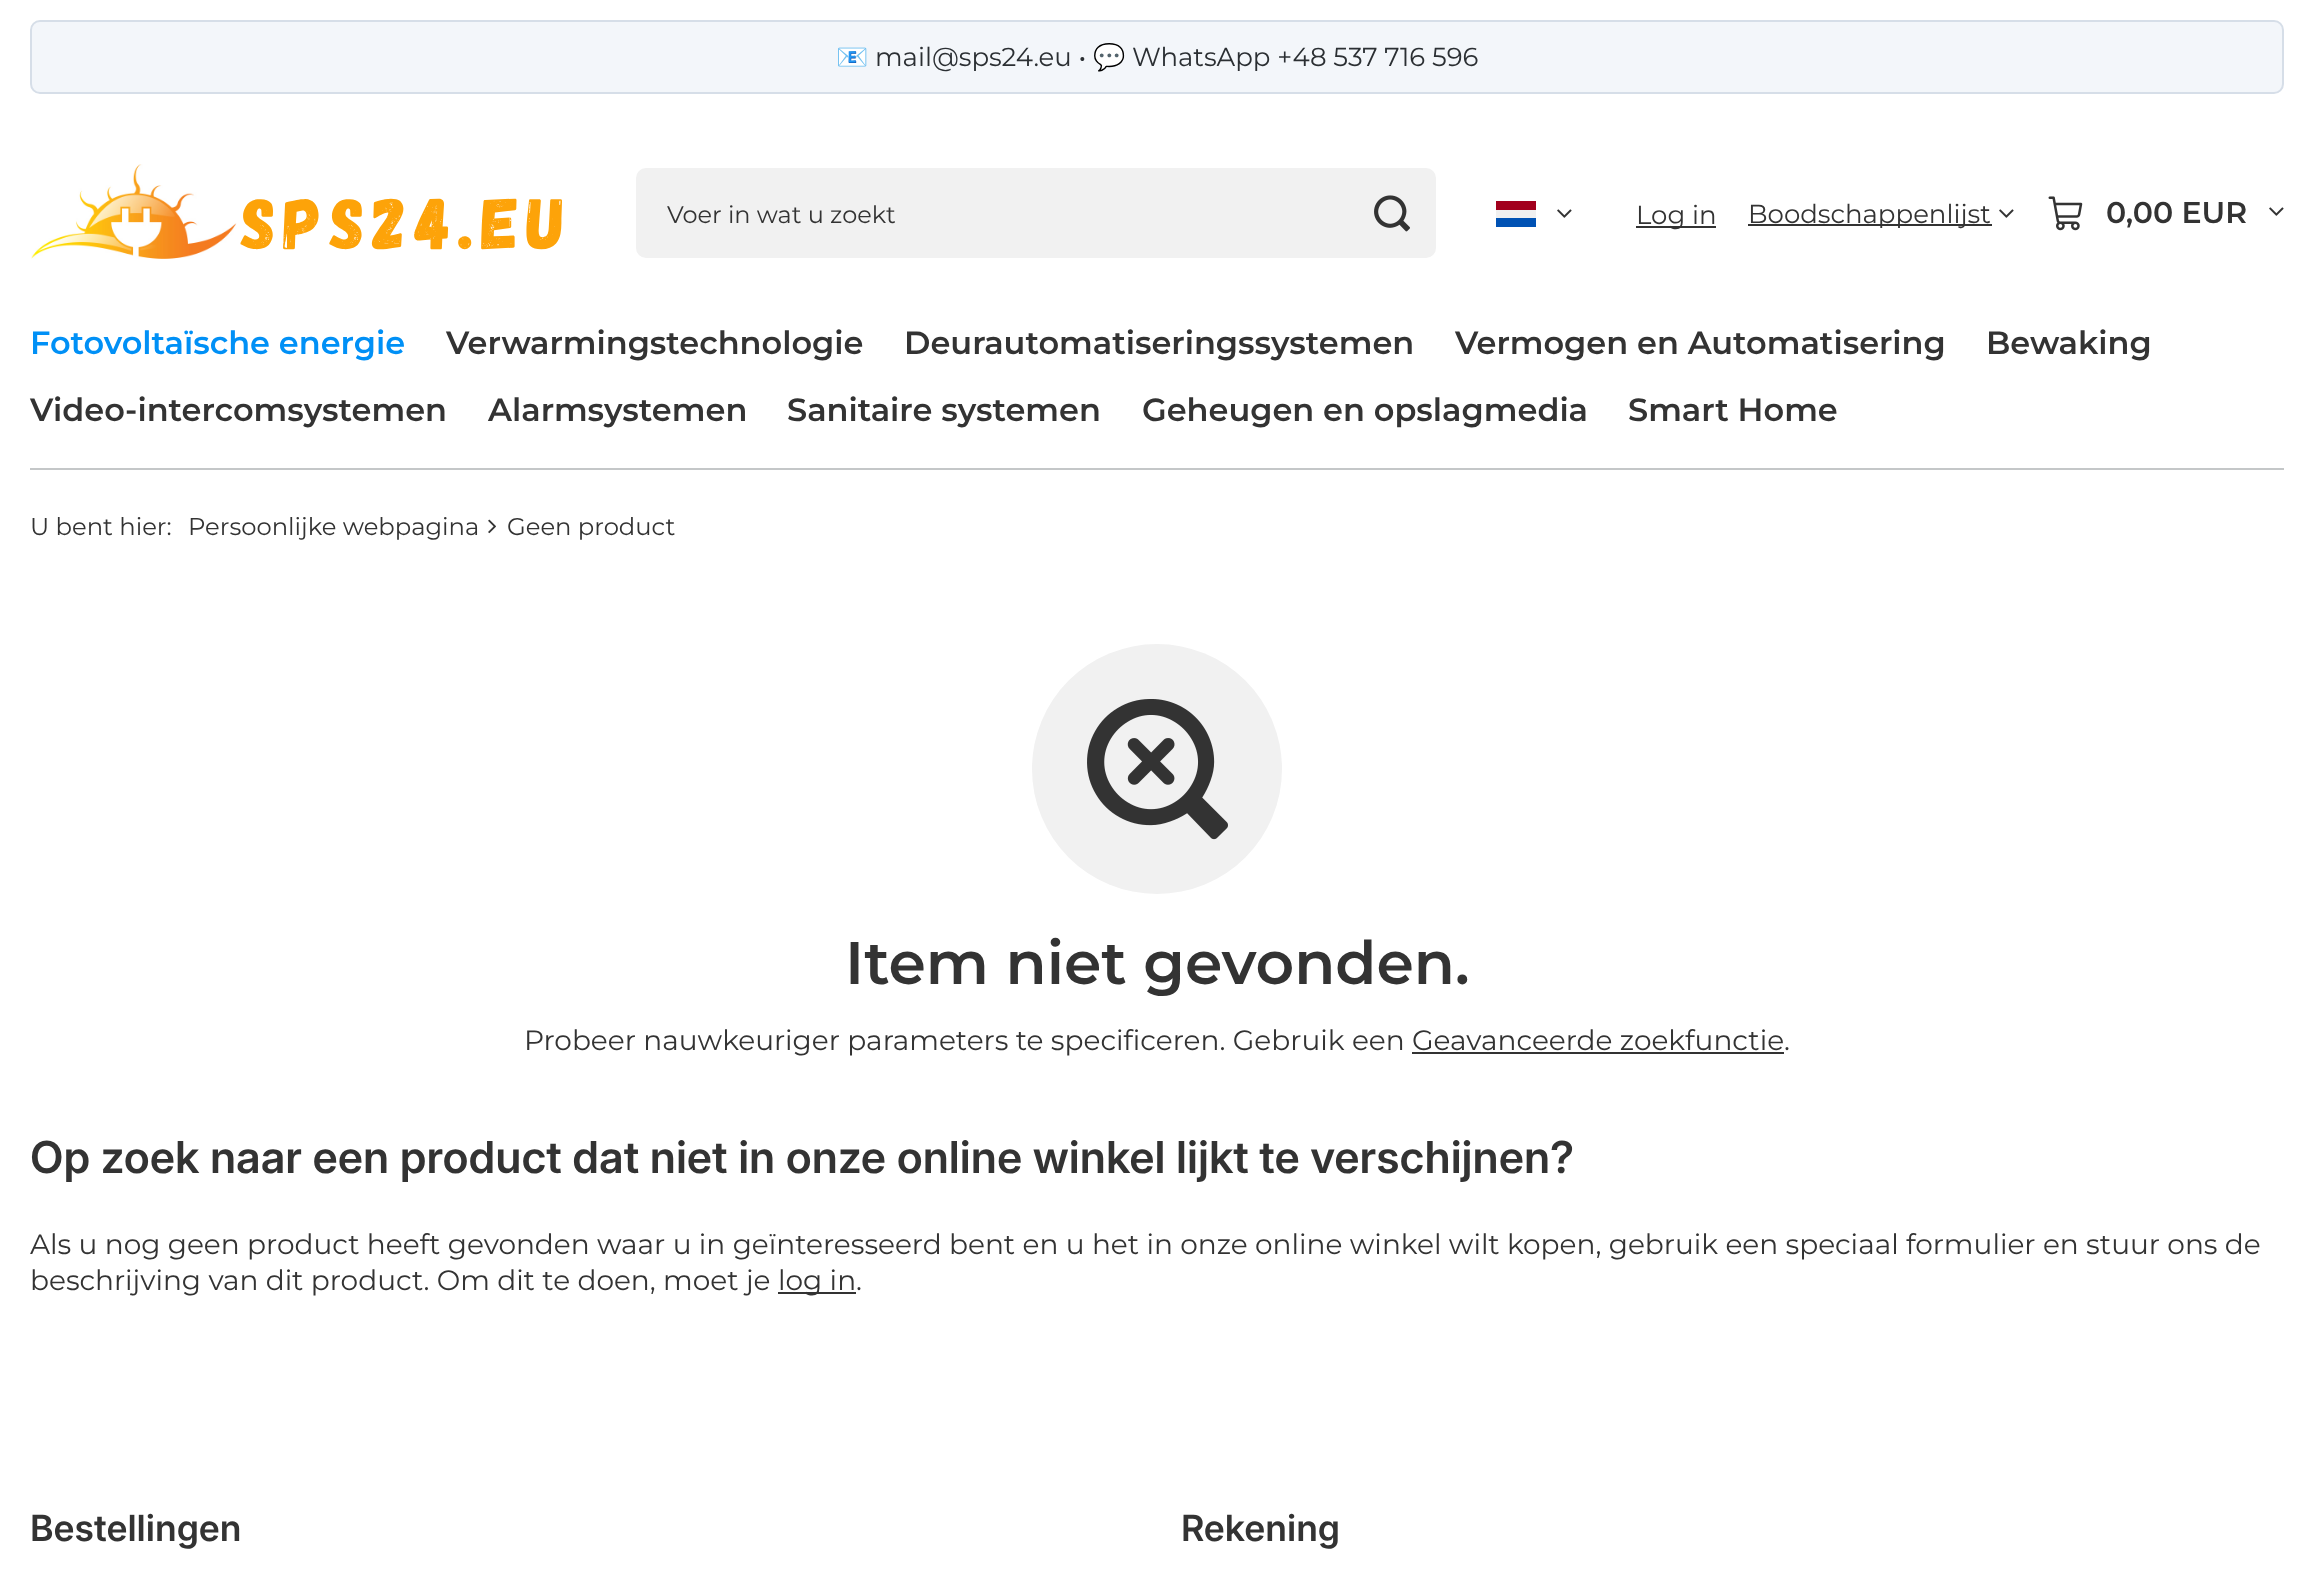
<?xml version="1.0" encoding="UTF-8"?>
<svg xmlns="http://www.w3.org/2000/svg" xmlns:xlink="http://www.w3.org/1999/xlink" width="2313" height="1586">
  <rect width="100%" height="100%" fill="#ffffff" />
  <rect x="31" y="21" width="2252" height="72" rx="9" fill="#f3f6fa" stroke="#d6dee8" stroke-width="2" />
  <image x="31" y="164" width="531" height="95" xlink:href="image1.png" />
  <rect x="636" y="168" width="800" height="90" rx="10" fill="#f1f1f1" />
  <image x="1374" y="195" width="36" height="37" xlink:href="image2.png" />
  <rect x="1496" y="210" width="40" height="8" fill="#f0f0f0" />
  <rect x="1496" y="201" width="40" height="9" fill="#a2001d" />
  <rect x="1496" y="218" width="40" height="9" fill="#0052b4" />
  <image x="1557" y="209" width="15" height="9" xlink:href="image3.png" />
  <rect x="1636" y="226" width="80" height="2" fill="#333333" />
  <rect x="1748" y="224" width="244" height="2" fill="#333333" />
  <image x="1999" y="209" width="15" height="9" xlink:href="image4.png" />
  <image x="2048" y="196" width="35" height="35" xlink:href="image5.png" />
  <image x="2269" y="207" width="15" height="9" xlink:href="image3.png" />
  <rect x="30" y="468" width="2254" height="2" fill="#c4c7c8" />
  <image x="488" y="519" width="8" height="15" xlink:href="image6.png" />
  <circle cx="1157" cy="769" r="125" fill="#f1f1f1" />
  <image x="1087" y="699" width="141" height="141" xlink:href="image7.png" />
  <rect x="1412" y="1052" width="372" height="2" fill="#333333" />
  <rect x="778" y="1292" width="78" height="2" fill="#333333" />
  <text x="836" y="66" style="font-family: Noto Color Emoji; font-size: 26px; fill: #2b2f33">📧</text>
  <text x="875" y="66" style="font-family: Montserrat; font-size: 26px; fill: #2b2f33">mail@sps24.eu •</text>
  <text x="1093" y="66" style="font-family: Noto Color Emoji; font-size: 26px; fill: #2b2f33">💬</text>
  <text x="1132" y="66" style="font-family: Montserrat; font-size: 26px; fill: #2b2f33">WhatsApp +48 537 716 596</text>
  <text x="667" y="223" style="font-family: Montserrat; font-size: 24px; fill: #333333">Voer in wat u zoekt</text>
  <text x="1636" y="224" style="font-family: Montserrat; font-size: 26px; fill: #333333">Log in</text>
  <text x="1748" y="223" style="font-family: Montserrat; font-size: 26px; fill: #333333">Boodschappenlijst</text>
  <text x="2106" y="223" style="font-family: Montserrat; font-size: 30px; font-weight: 600; fill: #333333">0,00 EUR</text>
  <text x="30" y="354" style="font-family: Montserrat; font-size: 32px; font-weight: 600; fill: #0090f6">Fotovoltaïsche energie</text>
  <text x="446" y="354" style="font-family: Montserrat; font-size: 32px; font-weight: 600; fill: #333333">Verwarmingstechnologie</text>
  <text x="904" y="354" style="font-family: Montserrat; font-size: 32px; font-weight: 600; fill: #333333">Deurautomatiseringssystemen</text>
  <text x="1455" y="354" style="font-family: Montserrat; font-size: 32px; font-weight: 600; fill: #333333">Vermogen en Automatisering</text>
  <text x="1986" y="354" style="font-family: Montserrat; font-size: 32px; font-weight: 600; fill: #333333">Bewaking</text>
  <text x="30" y="421" style="font-family: Montserrat; font-size: 32px; font-weight: 600; fill: #333333">Video-intercomsystemen</text>
  <text x="488" y="421" style="font-family: Montserrat; font-size: 32px; font-weight: 600; fill: #333333">Alarmsystemen</text>
  <text x="787" y="421" style="font-family: Montserrat; font-size: 32px; font-weight: 600; fill: #333333">Sanitaire systemen</text>
  <text x="1142" y="421" style="font-family: Montserrat; font-size: 32px; font-weight: 600; fill: #333333">Geheugen en opslagmedia</text>
  <text x="1628" y="421" style="font-family: Montserrat; font-size: 32px; font-weight: 600; fill: #333333">Smart Home</text>
  <text x="30" y="535" style="font-family: Montserrat; font-size: 24.25px; fill: #333333">U bent hier:</text>
  <text x="188" y="535" style="font-family: Montserrat; font-size: 24.25px; fill: #333333">Persoonlijke webpagina</text>
  <text x="507" y="535" style="font-family: Montserrat; font-size: 24.25px; fill: #333333">Geen product</text>
  <text x="845" y="984" style="font-family: Montserrat; font-size: 60px; font-weight: 600; fill: #333333">Item niet gevonden.</text>
  <text x="524" y="1050" style="font-family: Montserrat; font-size: 28px; fill: #333333">Probeer nauwkeuriger parameters te specificeren. Gebruik een Geavanceerde zoekfunctie.</text>
  <text x="30" y="1173" style="font-family: Inter; font-size: 44px; font-weight: 600; fill: #333333">Op zoek naar een product dat niet in onze online winkel lijkt te verschijnen?</text>
  <text x="30" y="1254" style="font-family: Montserrat; font-size: 28px; fill: #333333">Als u nog geen product heeft gevonden waar u in geïnteresseerd bent en u het in onze online winkel wilt kopen, gebruik een speciaal formulier en stuur ons de</text>
  <text x="30" y="1290" style="font-family: Montserrat; font-size: 28px; fill: #333333">beschrijving van dit product. Om dit te doen, moet je</text>
  <text x="778" y="1290" style="font-family: Montserrat; font-size: 28px; fill: #333333">log in.</text>
  <text x="30" y="1541" style="font-family: 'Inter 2'; font-size: 36px; font-weight: 600; fill: #333333">Bestellingen</text>
  <text x="1181" y="1541" style="font-family: 'Inter 2'; font-size: 36px; font-weight: 600; fill: #333333">Rekening</text>
</svg>
